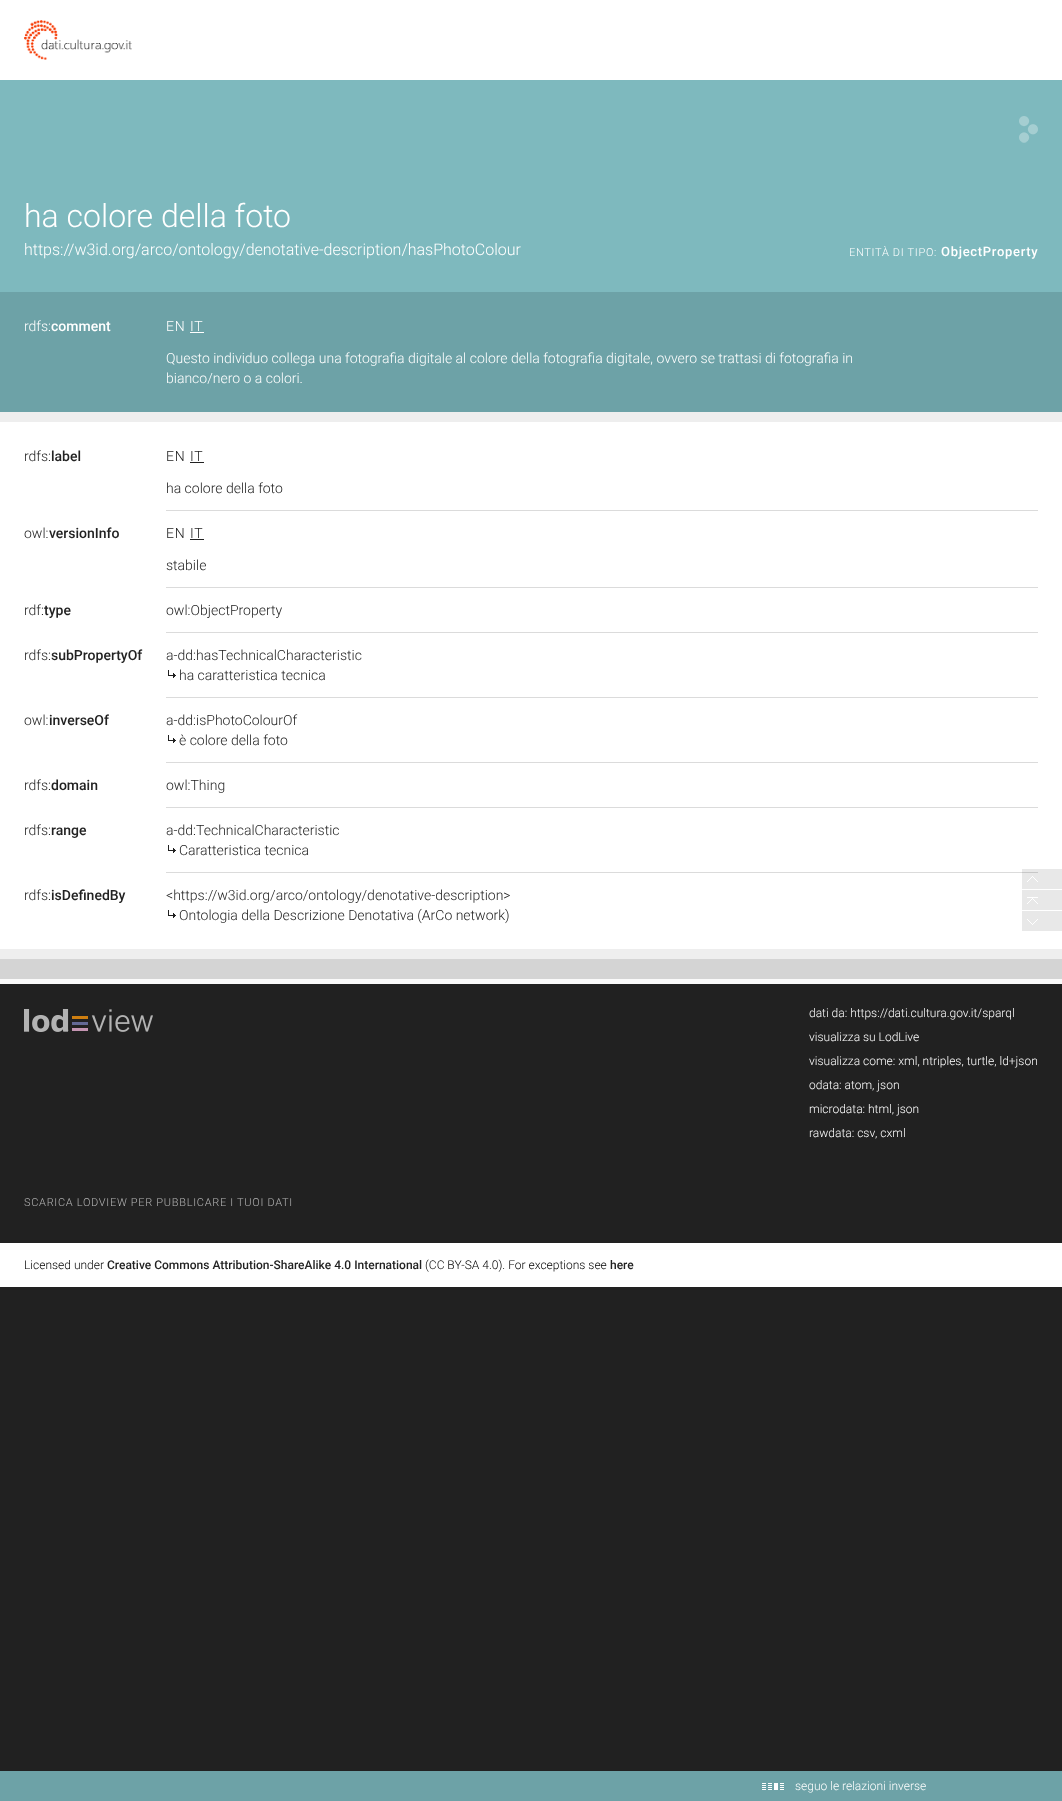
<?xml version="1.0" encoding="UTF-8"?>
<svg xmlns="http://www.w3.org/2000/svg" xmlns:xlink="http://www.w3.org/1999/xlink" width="1062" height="1801">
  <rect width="100%" height="100%" fill="#212121" />
  <rect width="1062" height="80" fill="#ffffff" />
  <image x="24" y="20" width="108" height="40" xlink:href="image1.png" />
  <rect y="80" width="1062" height="212" fill="#7eb9be" />
  <image x="1019" y="116" width="19" height="27" xlink:href="image2.png" />
  <rect y="292" width="1062" height="120" fill="#6da2a7" />
  <rect x="190" y="332" width="14" height="1" fill="#ffffff" />
  <rect y="412" width="1062" height="10" fill="#eeeeee" />
  <rect y="422" width="1062" height="527" fill="#ffffff" />
  <rect x="166" y="510" width="872" height="1" fill="#dbdbdb" />
  <rect x="190" y="462" width="14" height="1" fill="#212121" />
  <rect x="166" y="587" width="872" height="1" fill="#dbdbdb" />
  <rect x="190" y="539" width="14" height="1" fill="#212121" />
  <rect x="166" y="632" width="872" height="1" fill="#dbdbdb" />
  <rect x="166" y="697" width="872" height="1" fill="#dbdbdb" />
  <image x="168" y="670" width="8" height="8" xlink:href="image3.png" />
  <rect x="166" y="762" width="872" height="1" fill="#dbdbdb" />
  <image x="168" y="735" width="8" height="8" xlink:href="image3.png" />
  <rect x="166" y="807" width="872" height="1" fill="#dbdbdb" />
  <rect x="166" y="872" width="872" height="1" fill="#dbdbdb" />
  <image x="168" y="845" width="8" height="8" xlink:href="image3.png" />
  <image x="168" y="910" width="8" height="8" xlink:href="image3.png" />
  <rect y="949" width="1062" height="10" fill="#eeeeee" />
  <rect y="959" width="1062" height="20" fill="#d4d4d4" />
  <rect y="979" width="1062" height="5" fill="#fafafa" />
  <image x="1022" y="869" width="40" height="20" xlink:href="image4.png" />
  <image x="1022" y="890" width="40" height="20" xlink:href="image5.png" />
  <image x="1022" y="911" width="40" height="20" xlink:href="image6.png" />
  <image x="24" y="1009" width="129" height="23" xlink:href="image7.png" />
  <rect y="1243" width="1062" height="44" fill="#ffffff" />
  <rect y="1771" width="1062" height="30" fill="#6da2a7" />
  <image x="762" y="1783" width="22" height="7" xlink:href="image8.png" />
  <text x="24" y="227" style="font-family: Roboto; font-size: 32px; font-weight: 300; fill: #ffffff">ha colore della foto</text>
  <text x="24" y="255" style="font-family: Roboto; font-size: 16px; font-weight: 300; fill: #ffffff">https://w3id.org/arco/ontology/denotative-description/hasPhotoColour</text>
  <text x="849" y="256" style="font-family: Roboto; font-size: 11px; font-weight: 300; letter-spacing: 0.7px; fill: #ffffff">ENTITÀ DI TIPO:</text>
  <text x="941" y="256" style="font-family: Roboto; font-size: 13px; font-weight: 500; letter-spacing: 0.7px; fill: #ffffff">ObjectProperty</text>
  <text x="24" y="331" style="font-family: Roboto; font-size: 14px; font-weight: 300; fill: #ffffff">rdfs:</text>
  <text x="51" y="331" style="font-family: Roboto; font-size: 14px; font-weight: 500; fill: #ffffff">comment</text>
  <text x="166" y="331" style="font-family: Roboto; font-size: 14px; font-weight: 300; letter-spacing: 0.7px; fill: #ffffff">EN</text>
  <text x="190" y="331" style="font-family: Roboto; font-size: 14px; font-weight: 300; letter-spacing: 0.7px; fill: #ffffff">IT</text>
  <text x="166" y="363" style="font-family: Roboto; font-size: 14px; font-weight: 300; fill: #ffffff">Questo individuo collega una fotografia digitale al colore della fotografia digitale, ovvero se trattasi di fotografia in</text>
  <text x="166" y="383" style="font-family: Roboto; font-size: 14px; font-weight: 300; fill: #ffffff">bianco/nero o a colori.</text>
  <text x="24" y="461" style="font-family: Roboto; font-size: 14px; font-weight: 300; fill: #222222">rdfs:</text>
  <text x="51" y="461" style="font-family: Roboto; font-size: 14px; font-weight: 500; fill: #222222">label</text>
  <text x="166" y="461" style="font-family: Roboto; font-size: 14px; font-weight: 300; letter-spacing: 0.7px; fill: #222222">EN</text>
  <text x="190" y="461" style="font-family: Roboto; font-size: 14px; font-weight: 300; letter-spacing: 0.7px; fill: #222222">IT</text>
  <text x="166" y="493" style="font-family: Roboto; font-size: 14px; font-weight: 300; fill: #222222">ha colore della foto</text>
  <text x="24" y="538" style="font-family: Roboto; font-size: 14px; font-weight: 300; fill: #222222">owl:</text>
  <text x="49" y="538" style="font-family: Roboto; font-size: 14px; font-weight: 500; fill: #222222">versionInfo</text>
  <text x="166" y="538" style="font-family: Roboto; font-size: 14px; font-weight: 300; letter-spacing: 0.7px; fill: #222222">EN</text>
  <text x="190" y="538" style="font-family: Roboto; font-size: 14px; font-weight: 300; letter-spacing: 0.7px; fill: #222222">IT</text>
  <text x="166" y="570" style="font-family: Roboto; font-size: 14px; font-weight: 300; fill: #222222">stabile</text>
  <text x="24" y="615" style="font-family: Roboto; font-size: 14px; font-weight: 300; fill: #222222">rdf:</text>
  <text x="44" y="615" style="font-family: Roboto; font-size: 14px; font-weight: 500; fill: #222222">type</text>
  <text x="166" y="615" style="font-family: Roboto; font-size: 14px; font-weight: 300; fill: #222222">owl:ObjectProperty</text>
  <text x="24" y="660" style="font-family: Roboto; font-size: 14px; font-weight: 300; fill: #222222">rdfs:</text>
  <text x="51" y="660" style="font-family: Roboto; font-size: 14px; font-weight: 500; fill: #222222">subPropertyOf</text>
  <text x="166" y="660" style="font-family: Roboto; font-size: 14px; font-weight: 300; fill: #222222">a-dd:hasTechnicalCharacteristic</text>
  <text x="179" y="680" style="font-family: Roboto; font-size: 14px; font-weight: 300; fill: #222222">ha caratteristica tecnica</text>
  <text x="24" y="725" style="font-family: Roboto; font-size: 14px; font-weight: 300; fill: #222222">owl:</text>
  <text x="49" y="725" style="font-family: Roboto; font-size: 14px; font-weight: 500; fill: #222222">inverseOf</text>
  <text x="166" y="725" style="font-family: Roboto; font-size: 14px; font-weight: 300; fill: #222222">a-dd:isPhotoColourOf</text>
  <text x="179" y="745" style="font-family: Roboto; font-size: 14px; font-weight: 300; fill: #222222">è colore della foto</text>
  <text x="24" y="790" style="font-family: Roboto; font-size: 14px; font-weight: 300; fill: #222222">rdfs:</text>
  <text x="51" y="790" style="font-family: Roboto; font-size: 14px; font-weight: 500; fill: #222222">domain</text>
  <text x="166" y="790" style="font-family: Roboto; font-size: 14px; font-weight: 300; fill: #222222">owl:Thing</text>
  <text x="24" y="835" style="font-family: Roboto; font-size: 14px; font-weight: 300; fill: #222222">rdfs:</text>
  <text x="51" y="835" style="font-family: Roboto; font-size: 14px; font-weight: 500; fill: #222222">range</text>
  <text x="166" y="835" style="font-family: Roboto; font-size: 14px; font-weight: 300; fill: #222222">a-dd:TechnicalCharacteristic</text>
  <text x="179" y="855" style="font-family: Roboto; font-size: 14px; font-weight: 300; fill: #222222">Caratteristica tecnica</text>
  <text x="24" y="900" style="font-family: Roboto; font-size: 14px; font-weight: 300; fill: #222222">rdfs:</text>
  <text x="51" y="900" style="font-family: Roboto; font-size: 14px; font-weight: 500; fill: #222222">isDefinedBy</text>
  <text x="166" y="900" style="font-family: Roboto; font-size: 14px; font-weight: 300; fill: #222222">&lt;https://w3id.org/arco/ontology/denotative-description&gt;</text>
  <text x="179" y="920" style="font-family: Roboto; font-size: 14px; font-weight: 300; fill: #222222">Ontologia della Descrizione Denotativa (ArCo network)</text>
  <text x="809" y="1017" style="font-family: Roboto; font-size: 12px; font-weight: 300; fill: #ffffff">dati da: https://dati.cultura.gov.it/sparql</text>
  <text x="809" y="1041" style="font-family: Roboto; font-size: 12px; font-weight: 300; fill: #ffffff">visualizza su LodLive</text>
  <text x="809" y="1065" style="font-family: Roboto; font-size: 12px; font-weight: 300; fill: #ffffff">visualizza come: xml, ntriples, turtle, ld+json</text>
  <text x="809" y="1089" style="font-family: Roboto; font-size: 12px; font-weight: 300; fill: #ffffff">odata: atom, json</text>
  <text x="809" y="1113" style="font-family: Roboto; font-size: 12px; font-weight: 300; fill: #ffffff">microdata: html, json</text>
  <text x="809" y="1137" style="font-family: Roboto; font-size: 12px; font-weight: 300; fill: #ffffff">rawdata: csv</text>
  <text x="875" y="1137" style="font-family: Roboto; font-size: 12px; font-weight: 300; fill: #ffffff">, cxml</text>
  <text x="24" y="1206" style="font-family: Roboto; font-size: 11px; font-weight: 300; letter-spacing: 0.7px; fill: #b4b4b4">SCARICA LODVIEW PER PUBBLICARE I TUOI DATI</text>
  <text x="24" y="1269" style="font-family: Roboto; font-size: 12px; font-weight: 300; fill: #000000">Licensed under</text>
  <text x="107" y="1269" style="font-family: Roboto; font-size: 12px; font-weight: 500; fill: #222222">Creative Commons Attribution-ShareAlike 4.0 International</text>
  <text x="425" y="1269" style="font-family: Roboto; font-size: 12px; font-weight: 300; fill: #000000">(CC BY-SA 4.0). For exceptions see</text>
  <text x="610" y="1269" style="font-family: Roboto; font-size: 12px; font-weight: 500; fill: #222222">here</text>
  <text x="795" y="1790" style="font-family: Roboto; font-size: 12px; font-weight: 300; fill: #ffffff">seguo le relazioni inverse</text>
</svg>
